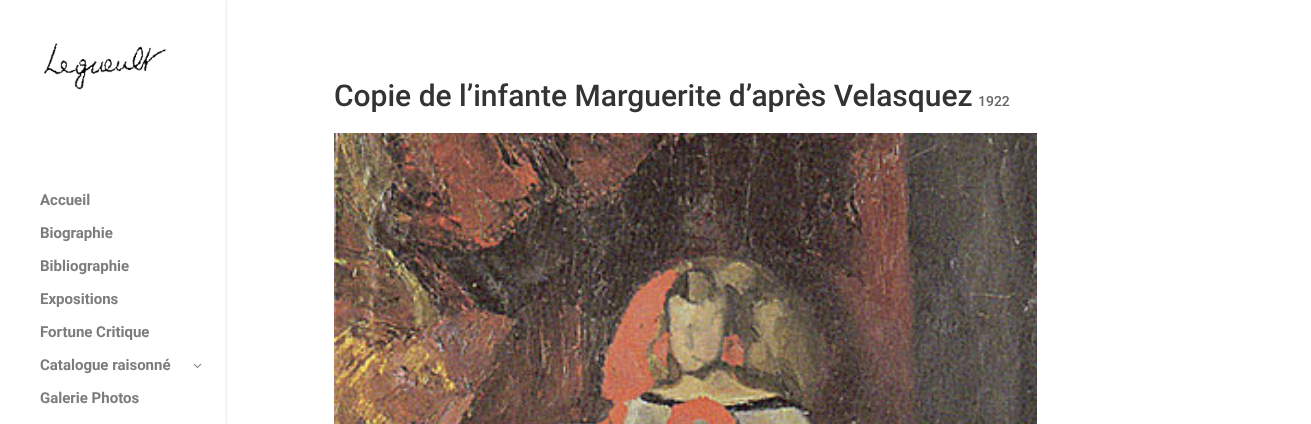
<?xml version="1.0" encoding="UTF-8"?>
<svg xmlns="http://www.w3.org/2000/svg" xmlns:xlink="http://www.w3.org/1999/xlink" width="1311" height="424">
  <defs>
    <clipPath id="clip1"><rect x="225" y="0" width="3" height="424" /></clipPath>
  </defs>
  <rect width="100%" height="100%" fill="#ffffff" />
  <image x="334" y="133" width="703" height="291" xlink:href="image1.png" />
  <g clip-path="url(#clip1)">
    <rect width="225" height="424" fill="#000000" fill-opacity="0.1" filter="blur(3.5px)" />
  </g>
  <image x="44" y="43" width="122" height="47" xlink:href="image2.png" />
  <image x="193" y="363" width="9" height="5" xlink:href="image3.png" />
  <text x="334" y="106" style="font-family: Roboto; font-size: 30px; font-weight: 500; fill: #333333">Copie de l’infante Marguerite d’après Velasquez</text>
  <text x="978" y="106" style="font-family: Roboto; font-size: 14px; font-weight: 500; fill: #666666">1922</text>
  <text x="40" y="205" style="font-family: Roboto; font-size: 15px; font-weight: bold; fill: #7c7c7c">Accueil</text>
  <text x="40" y="238" style="font-family: Roboto; font-size: 15px; font-weight: bold; fill: #7c7c7c">Biographie</text>
  <text x="40" y="271" style="font-family: Roboto; font-size: 15px; font-weight: bold; fill: #7c7c7c">Bibliographie</text>
  <text x="40" y="304" style="font-family: Roboto; font-size: 15px; font-weight: bold; fill: #7c7c7c">Expositions</text>
  <text x="40" y="337" style="font-family: Roboto; font-size: 15px; font-weight: bold; fill: #7c7c7c">Fortune Critique</text>
  <text x="40" y="370" style="font-family: Roboto; font-size: 15px; font-weight: bold; fill: #7c7c7c">Catalogue raisonné</text>
  <text x="40" y="403" style="font-family: Roboto; font-size: 15px; font-weight: bold; fill: #7c7c7c">Galerie Photos</text>
</svg>
